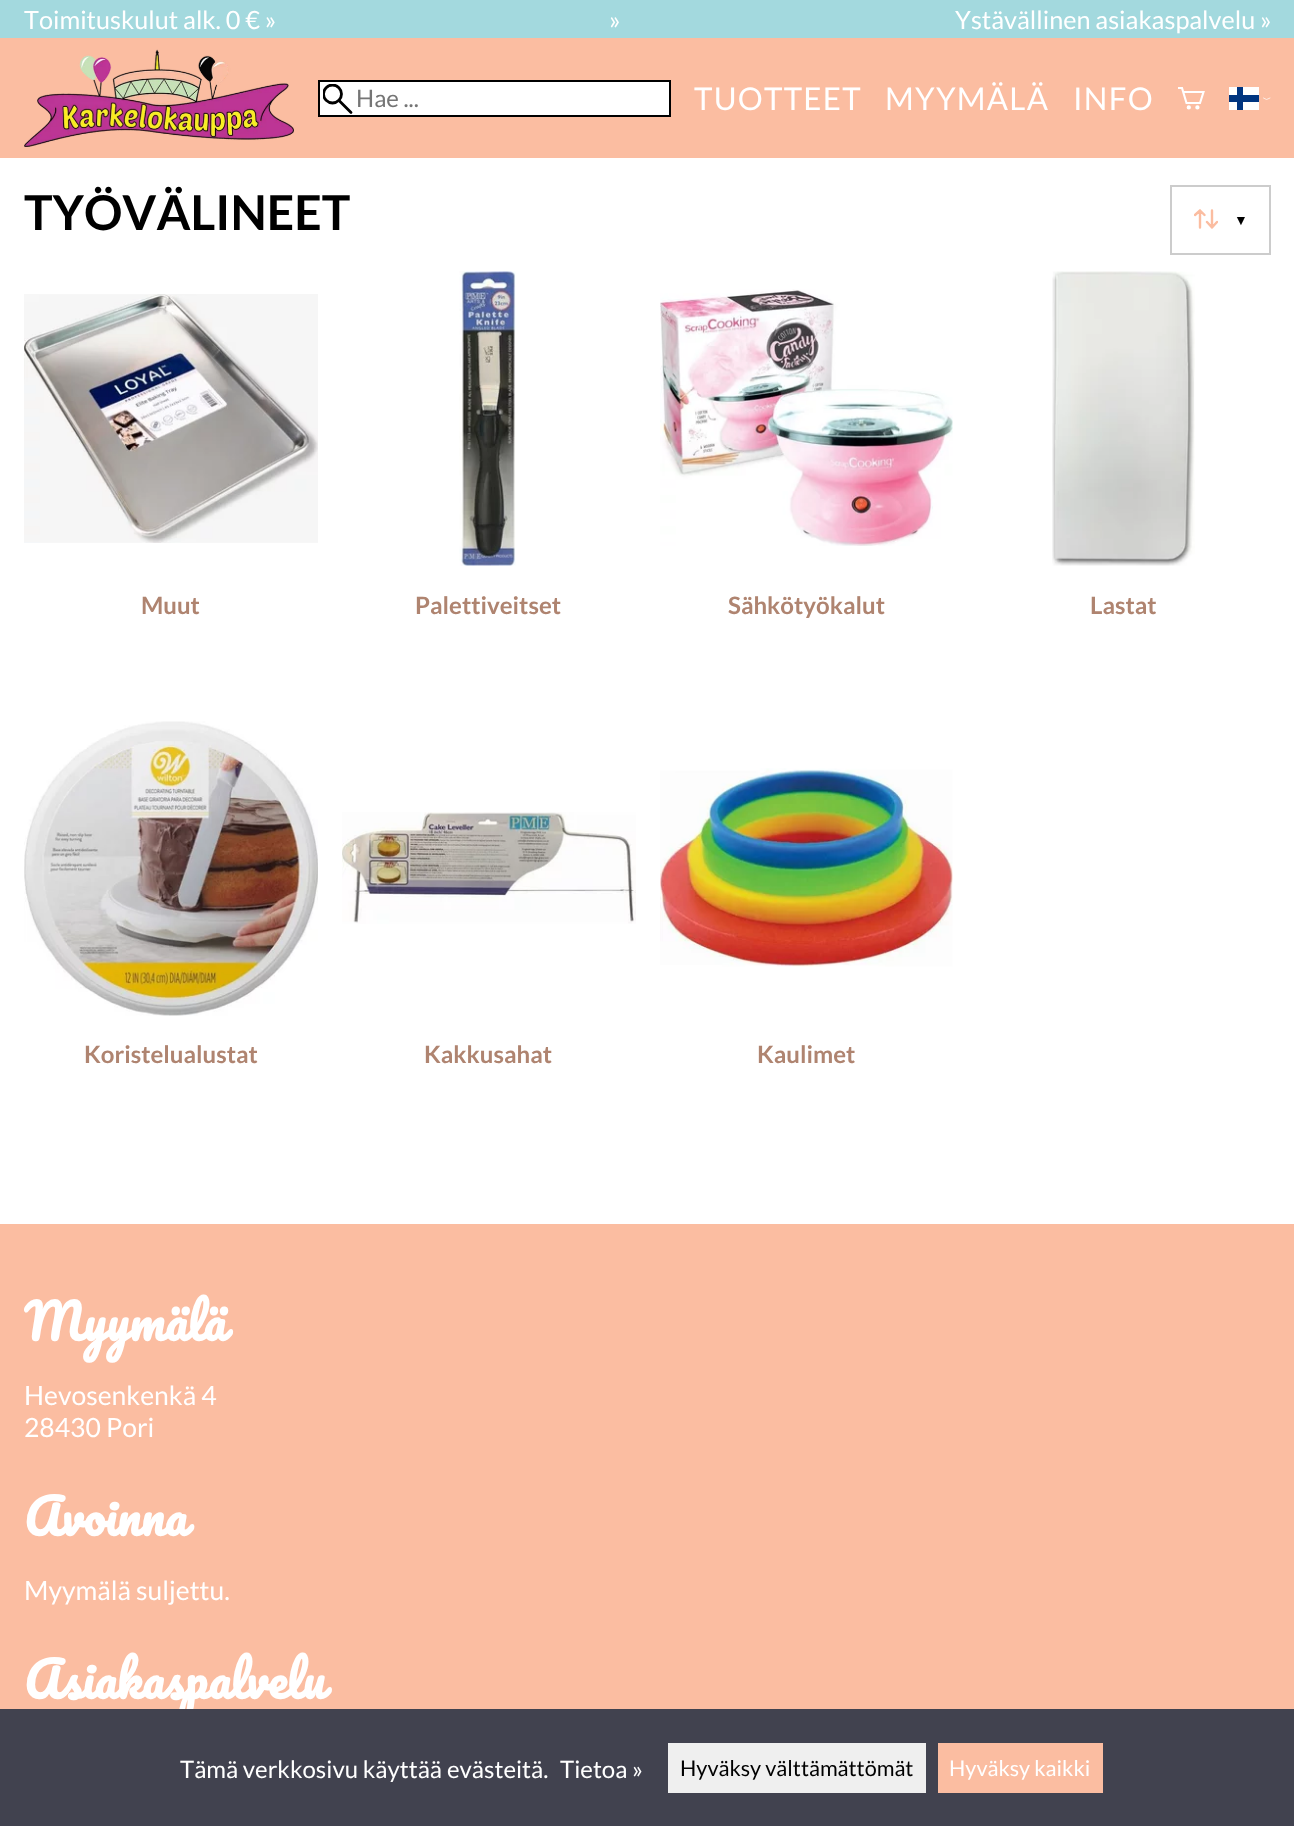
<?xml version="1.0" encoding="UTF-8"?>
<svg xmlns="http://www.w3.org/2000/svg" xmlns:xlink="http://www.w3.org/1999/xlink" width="1294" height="1826">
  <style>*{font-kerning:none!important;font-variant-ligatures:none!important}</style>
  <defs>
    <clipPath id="clip1"><rect x="323" y="84" width="30" height="30" /></clipPath>
    <clipPath id="clip2"><rect x="1178" y="87" width="27" height="23" /></clipPath>
    <clipPath id="clip3"><rect x="1194" y="207" width="24" height="24" /></clipPath>
  </defs>
  <rect width="100%" height="100%" fill="#ffffff" />
  <rect width="1294" height="38" fill="#a3d9de" />
  <rect y="38" width="1294" height="120" fill="#fbbda1" />
  <image x="24" y="49" width="270" height="98" xlink:href="image1.png" />
  <rect x="319" y="81" width="351" height="35" fill="#ffffff" stroke="#000000" stroke-width="2" />
  <path d="M 351 112.5 l -12 -12" fill="none" stroke="#000000" stroke-width="2.8" stroke-linecap="round" />
  <g clip-path="url(#clip1)">
    <circle cx="332.5" cy="94" r="9" fill="none" stroke="#000000" stroke-width="2.8" />
  </g>
  <g clip-path="url(#clip2)">
    <path d="M 1183.5 92 h 20 l -3.5 11 h -13.5 l -4.5 -15 h -3.5" fill="none" stroke="#ffffff" stroke-width="2.1" stroke-linecap="round" />
  </g>
  <circle cx="1188.8" cy="107.4" r="1.1" fill="none" stroke="#ffffff" stroke-width="2.1" />
  <circle cx="1197.4" cy="107.4" r="1.1" fill="none" stroke="#ffffff" stroke-width="2.1" />
  <rect x="1229" y="87" width="30" height="23" fill="#ffffff" />
  <rect x="1229" y="95" width="30" height="7" fill="#003580" />
  <rect x="1237" y="87" width="6" height="23" fill="#003580" />
  <path d="M 1263.5 98 l 3 1.5 l 3.5 -1.5" fill="none" stroke="#ffffff" stroke-width="0.7" stroke-linecap="round" />
  <rect x="1171" y="186" width="99" height="68" fill="none" stroke="#cccccc" stroke-width="2" />
  <g clip-path="url(#clip3)">
    <path d="M 1200 227.5 v -17 m 0 0 l 4.5 4.5 m -4.5 -4.5 l -5 4.5 m 17 -4.5 v 17 m 0 0 l 5 -5.5 m -5 5.5 l -5 -5.5" fill="none" stroke="#fbbda1" stroke-width="2.4" stroke-linecap="round" />
  </g>
  <image x="24" y="294" width="294" height="249" xlink:href="image2.png" />
  <image x="459" y="271" width="57" height="295" xlink:href="image3.png" />
  <image x="660" y="289" width="293" height="257" xlink:href="image4.png" />
  <image x="1052" y="271" width="143" height="295" xlink:href="image5.png" />
  <image x="24" y="721" width="294" height="295" xlink:href="image6.png" />
  <image x="342" y="812" width="294" height="112" xlink:href="image7.png" />
  <image x="660" y="768" width="293" height="199" xlink:href="image8.png" />
  <rect y="1224" width="1294" height="485" fill="#fbbda1" />
  <text x="24" y="29" style="font-family: Lato; font-size: 25.25px; fill: #ffffff">Toimituskulut alk. 0 € »</text>
  <text x="609" y="29" style="font-family: Lato; font-size: 25.25px; fill: #ffffff">»</text>
  <text x="955" y="29" style="font-family: Lato; font-size: 25.25px; fill: #ffffff">Ystävällinen asiakaspalvelu »</text>
  <text x="356" y="107" style="font-family: Lato; font-size: 24px; fill: #757575">Hae ...</text>
  <text x="694" y="110" style="font-family: Lato; font-size: 31.25px; letter-spacing: 1.25px; fill: #ffffff">TUOTTEET</text>
  <text x="885" y="110" style="font-family: Lato; font-size: 31.25px; letter-spacing: 1.25px; fill: #ffffff">MYYMÄLÄ</text>
  <text x="1073" y="110" style="font-family: Lato; font-size: 31.25px; letter-spacing: 1.25px; fill: #ffffff">INFO</text>
  <text x="24" y="230" style="font-family: Lato; font-size: 48px; font-weight: bold; fill: #000000">TYÖVÄLINEET</text>
  <text x="1234" y="225" style="font-family: Liberation Sans; font-size: 14px; fill: #000000">▼</text>
  <text x="141" y="614" style="font-family: Lato; font-size: 24px; font-weight: bold; fill: #af8470">Muut</text>
  <text x="415" y="614" style="font-family: Lato; font-size: 24px; font-weight: bold; fill: #af8470">Palettiveitset</text>
  <text x="728" y="614" style="font-family: Lato; font-size: 24px; font-weight: bold; fill: #af8470">Sähkötyökalut</text>
  <text x="1090" y="614" style="font-family: Lato; font-size: 24px; font-weight: bold; fill: #af8470">Lastat</text>
  <text x="84" y="1063" style="font-family: Lato; font-size: 24px; font-weight: bold; fill: #af8470">Koristelualustat</text>
  <text x="424" y="1063" style="font-family: Lato; font-size: 24px; font-weight: bold; fill: #af8470">Kakkusahat</text>
  <text x="757" y="1063" style="font-family: Lato; font-size: 24px; font-weight: bold; fill: #af8470">Kaulimet</text>
  <text x="24" y="1341" style="font-family: Pacifico; font-size: 48px; font-weight: bold; fill: #ffffff">Myymälä</text>
  <text x="24" y="1405" style="font-family: Lato; font-size: 26.5px; fill: #ffffff">Hevosenkenkä 4</text>
  <text x="24" y="1437" style="font-family: Lato; font-size: 26.5px; fill: #ffffff">28430 Pori</text>
  <text x="24" y="1536" style="font-family: Pacifico; font-size: 48px; font-weight: bold; fill: #ffffff">Avoinna</text>
  <text x="24" y="1600" style="font-family: Lato; font-size: 26.5px; fill: #ffffff">Myymälä suljettu.</text>
  <text x="24" y="1699" style="font-family: Pacifico; font-size: 48px; font-weight: bold; fill: #ffffff">Asiakaspalvelu</text>
  <rect y="1709" width="1294" height="117" fill="#41424f" />
  <text x="180" y="1778" style="font-family: Lato; font-size: 24px; fill: #ffffff">Tämä verkkosivu käyttää</text>
  <text x="447" y="1778" style="font-family: Lato; font-size: 24px; fill: #ffffff">evästeitä.</text>
  <text x="560" y="1778" style="font-family: Lato; font-size: 24px; fill: #ffffff">Tietoa »</text>
  <rect x="668" y="1743" width="258" height="50" fill="#efefef" />
  <text x="680" y="1776" style="font-family: Lato; font-size: 21.6px; fill: #000000">Hyväksy välttämättömät</text>
  <rect x="938" y="1743" width="165" height="50" fill="#fbbda1" />
  <text x="949" y="1776" style="font-family: Lato; font-size: 21.6px; fill: #ffffff">Hyväksy kaikki</text>
</svg>
